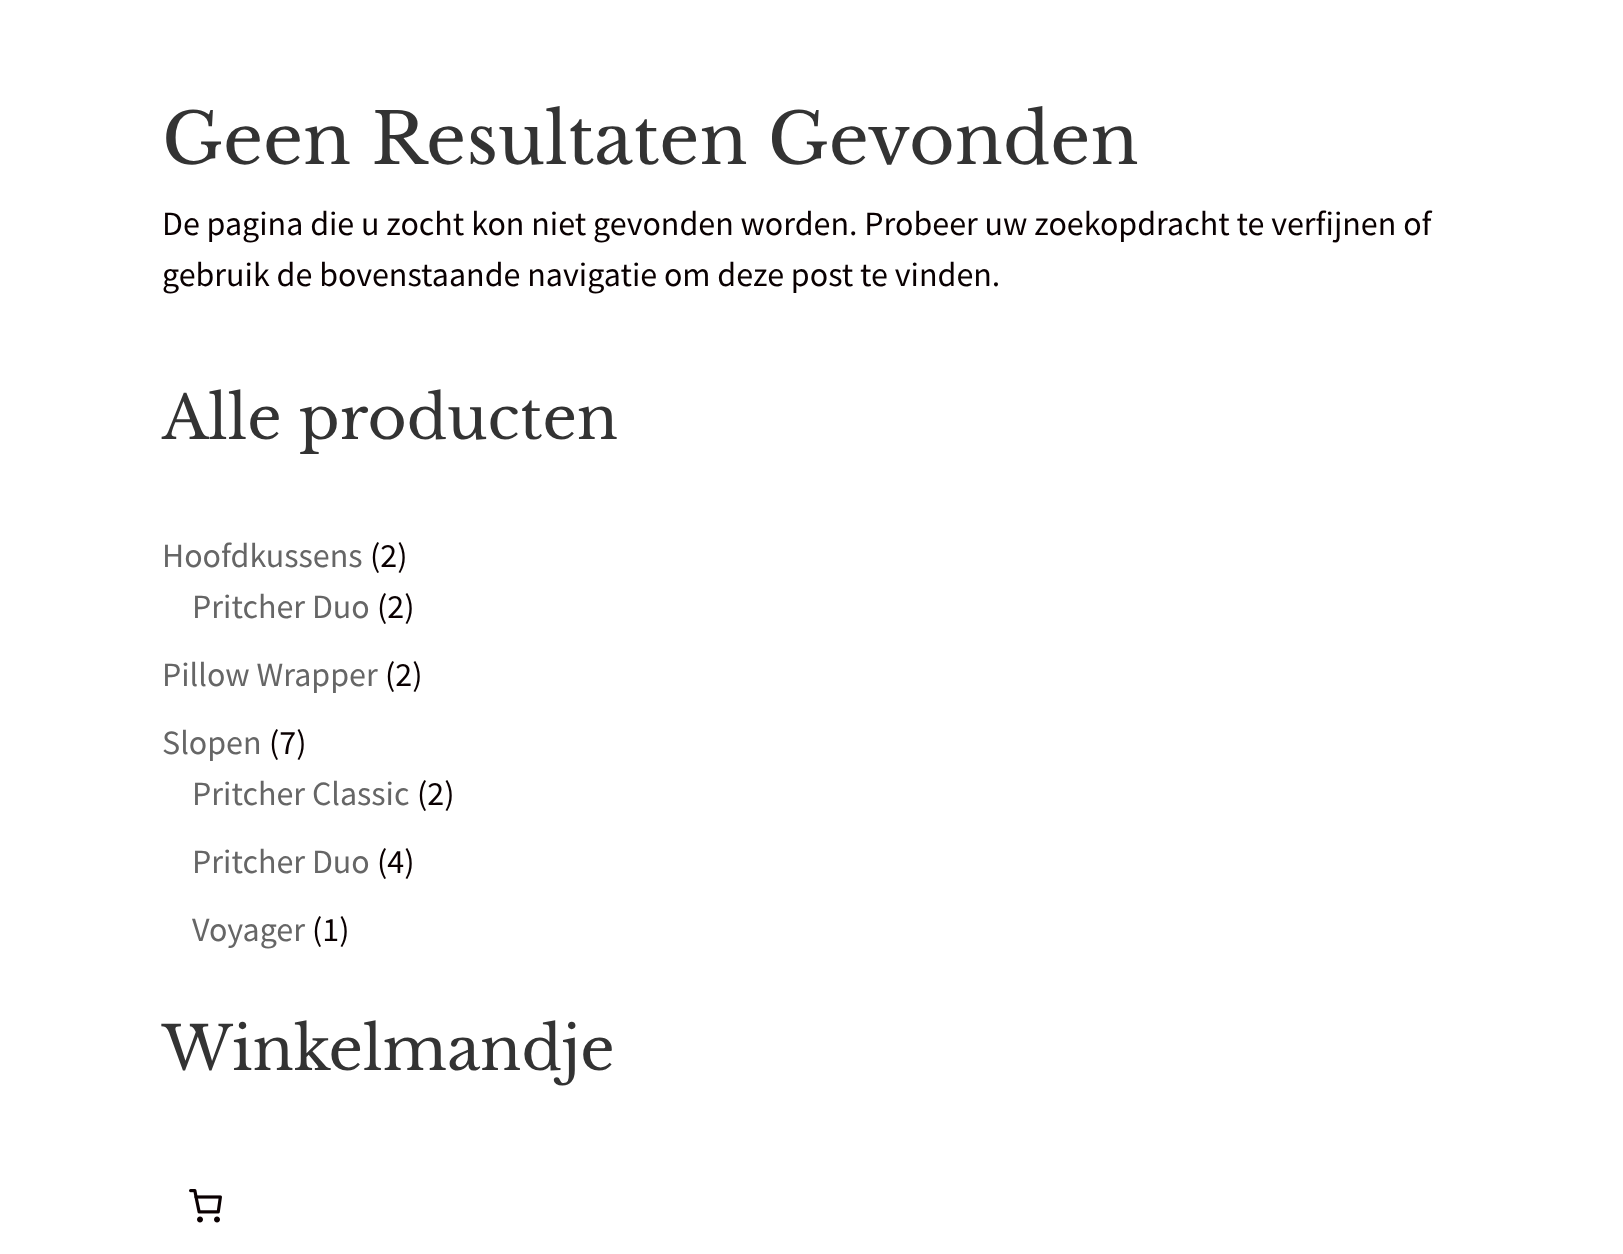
<?xml version="1.0" encoding="UTF-8"?>
<svg xmlns="http://www.w3.org/2000/svg" xmlns:xlink="http://www.w3.org/1999/xlink" width="1623" height="1254">
  <rect width="100%" height="100%" fill="#ffffff" />
  <image x="189" y="1189" width="33" height="34" xlink:href="image1.png" />
  <text x="162" y="164" style="font-family: Libre Baskerville; font-size: 70px; fill: #333333">Geen Resultaten Gevonden</text>
  <text x="162" y="235" style="font-family: Source Sans Pro; font-size: 34px; fill: #0a0001">De pagina die u zocht kon niet gevonden worden. Probeer uw zoekopdracht te verfijnen of</text>
  <text x="162" y="286" style="font-family: Source Sans Pro; font-size: 34px; fill: #0a0001">gebruik de bovenstaande navigatie om deze post te vinden.</text>
  <text x="162" y="439" style="font-family: Libre Baskerville; font-size: 60px; fill: #333333">Alle producten</text>
  <text x="162" y="567" style="font-family: Source Sans Pro; font-size: 34px; fill: #666666">Hoofdkussens</text>
  <text x="370" y="567" style="font-family: Source Sans Pro; font-size: 34px; fill: #0a0001">(2)</text>
  <text x="192" y="618" style="font-family: Source Sans Pro; font-size: 34px; fill: #666666">Pritcher Duo</text>
  <text x="377" y="618" style="font-family: Source Sans Pro; font-size: 34px; fill: #0a0001">(2)</text>
  <text x="162" y="686" style="font-family: Source Sans Pro; font-size: 34px; fill: #666666">Pillow Wrapper</text>
  <text x="385" y="686" style="font-family: Source Sans Pro; font-size: 34px; fill: #0a0001">(2)</text>
  <text x="162" y="754" style="font-family: Source Sans Pro; font-size: 34px; fill: #666666">Slopen</text>
  <text x="269" y="754" style="font-family: Source Sans Pro; font-size: 34px; fill: #0a0001">(7)</text>
  <text x="192" y="805" style="font-family: Source Sans Pro; font-size: 34px; fill: #666666">Pritcher Classic</text>
  <text x="417" y="805" style="font-family: Source Sans Pro; font-size: 34px; fill: #0a0001">(2)</text>
  <text x="192" y="873" style="font-family: Source Sans Pro; font-size: 34px; fill: #666666">Pritcher Duo</text>
  <text x="377" y="873" style="font-family: Source Sans Pro; font-size: 34px; fill: #0a0001">(4)</text>
  <text x="192" y="941" style="font-family: Source Sans Pro; font-size: 34px; fill: #666666">Voyager</text>
  <text x="312" y="941" style="font-family: Source Sans Pro; font-size: 34px; fill: #0a0001">(1)</text>
  <text x="162" y="1070" style="font-family: Libre Baskerville; font-size: 60px; fill: #333333">Winkelmandje</text>
</svg>
